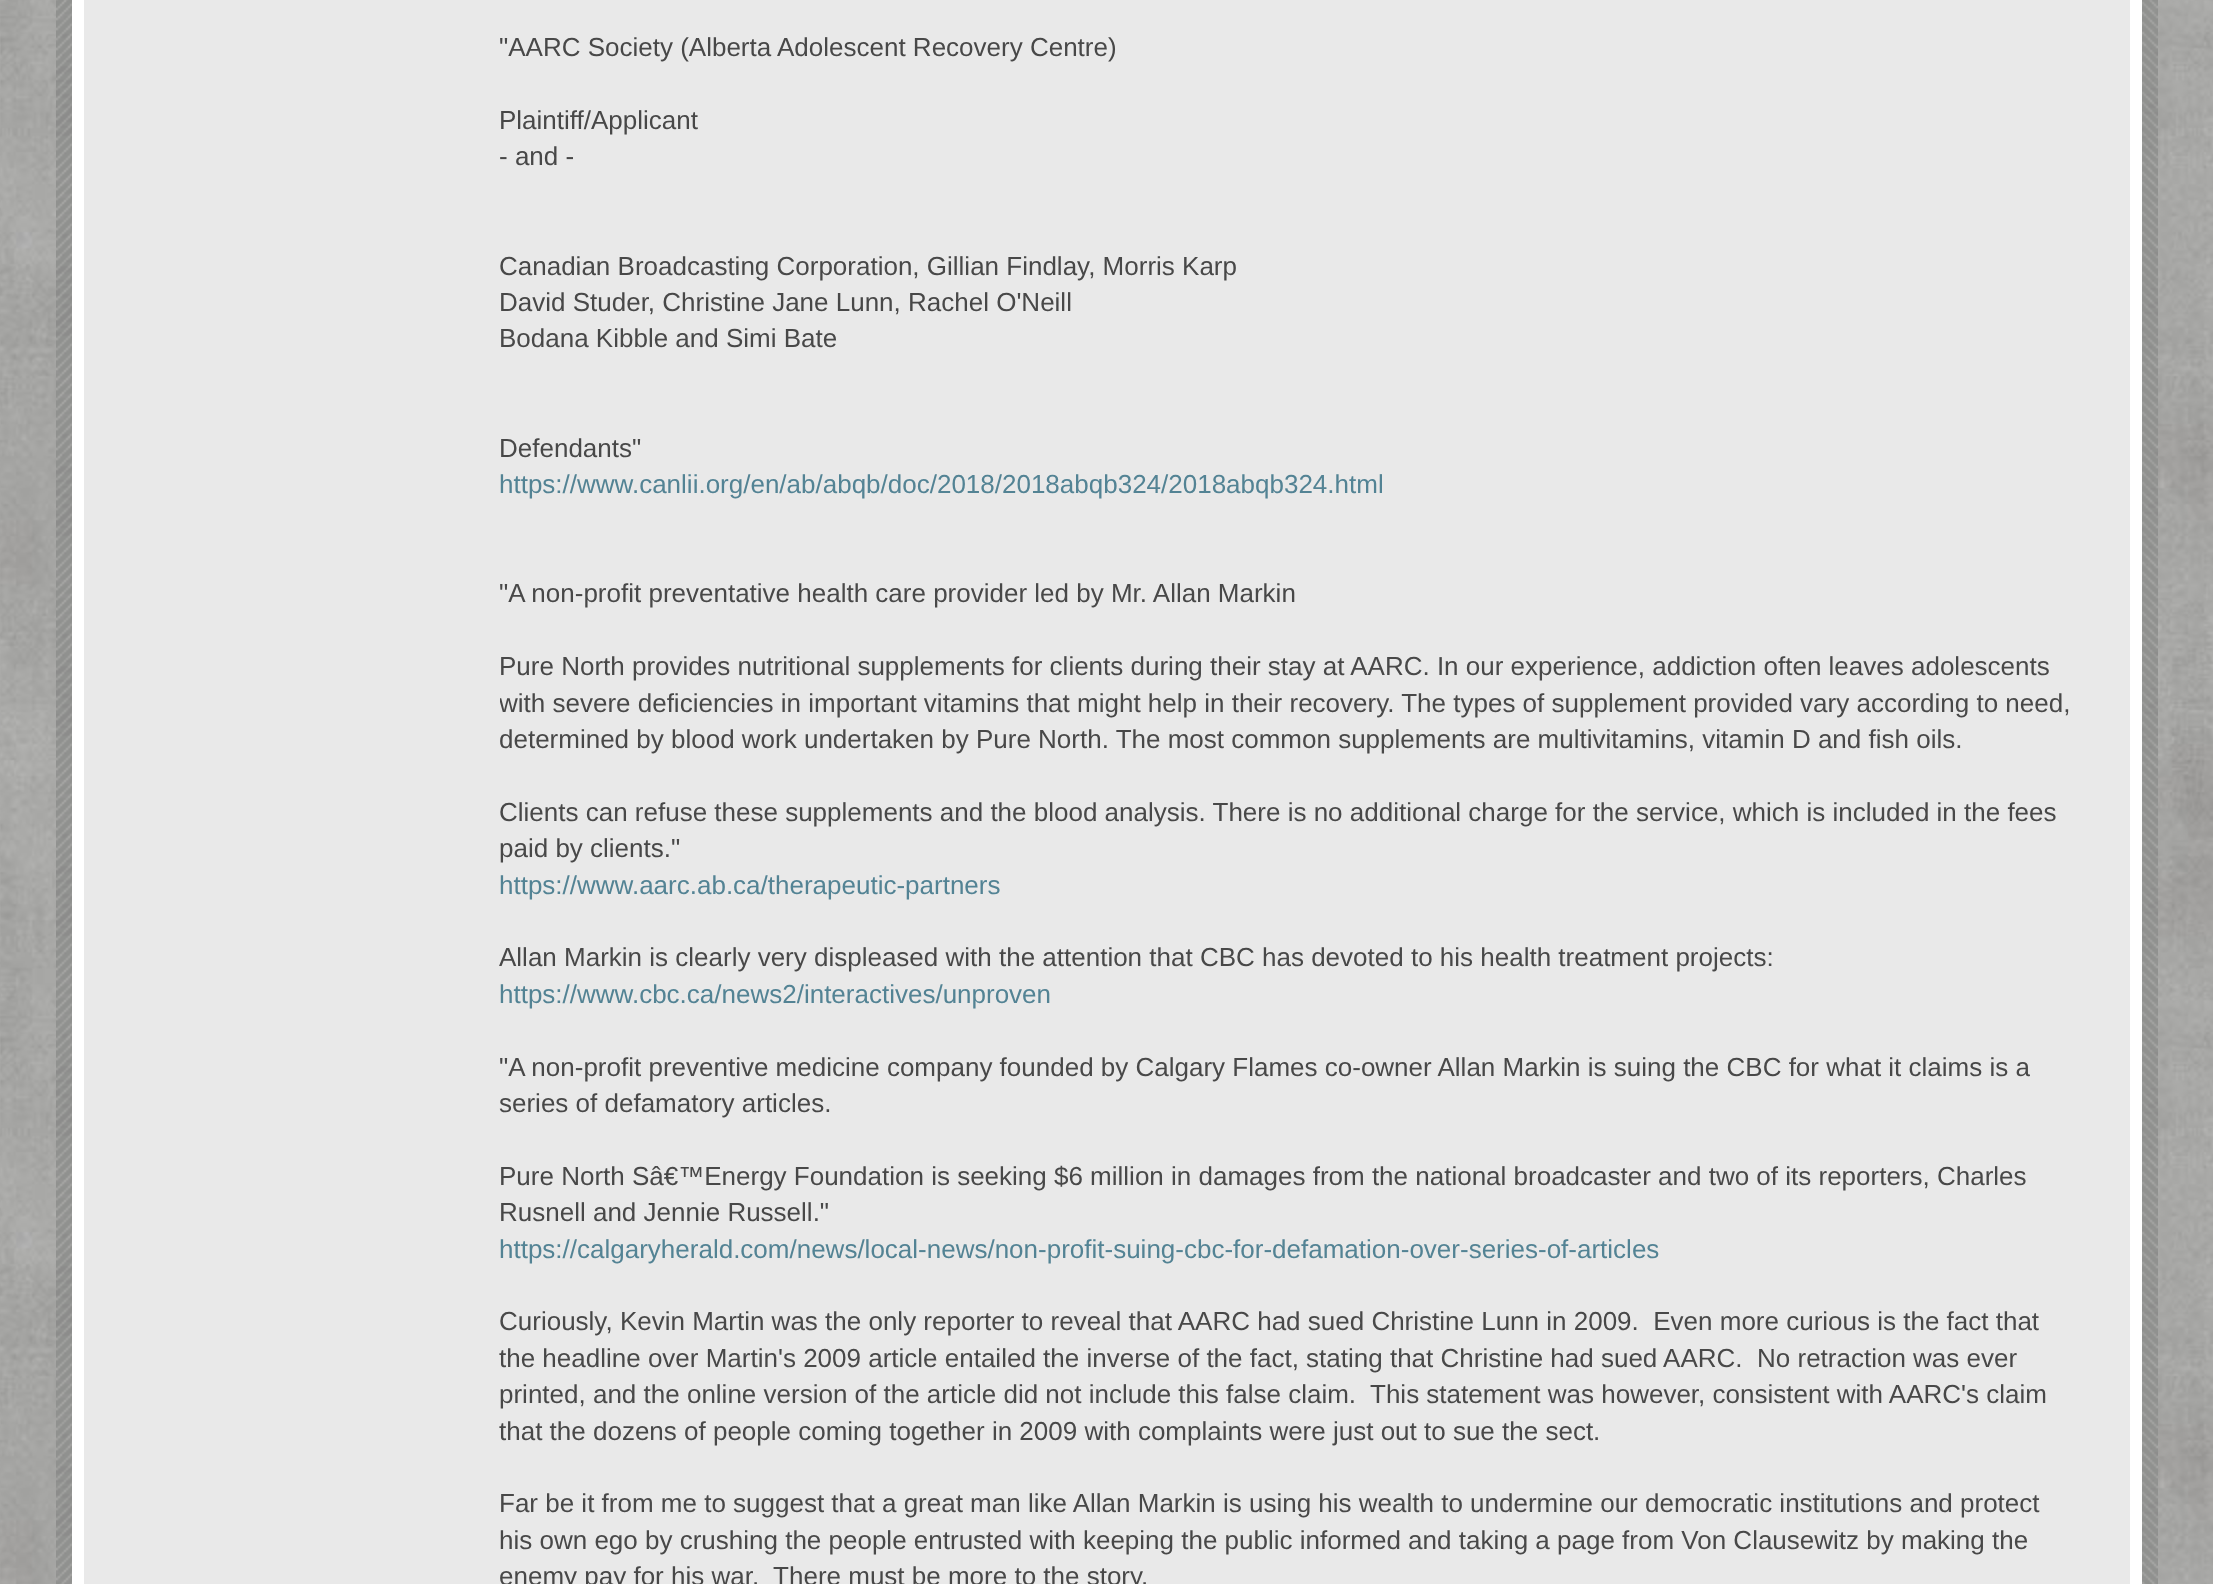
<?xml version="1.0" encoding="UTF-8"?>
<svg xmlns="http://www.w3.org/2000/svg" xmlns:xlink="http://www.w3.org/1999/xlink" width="2213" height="1584">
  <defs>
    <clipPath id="clip1"><rect x="500" width="1630" height="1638" /></clipPath>
  </defs>
  <rect width="100%" height="100%" fill="#ffffff" />
  <image x="0" y="0" width="2213" height="1584" xlink:href="image1.png" />
  <image x="56" y="0" width="16" height="1584" xlink:href="image2.png" />
  <image x="2142" y="0" width="16" height="1584" xlink:href="image3.png" />
  <rect x="72" width="2070" height="1584" fill="#ffffff" />
  <rect x="84" width="2046" height="1584" fill="#e9e9e9" />
  <text x="499" y="56" style="font-family: Liberation Sans; font-size: 26px; fill: #484848">"AARC Society (Alberta Adolescent Recovery Centre)</text>
  <text x="499" y="129" style="font-family: Liberation Sans; font-size: 26px; fill: #484848">Plaintiff/Applicant</text>
  <text x="499" y="165" style="font-family: Liberation Sans; font-size: 26px; fill: #484848">- and -</text>
  <text x="499" y="275" style="font-family: Liberation Sans; font-size: 26px; fill: #484848">Canadian Broadcasting Corporation, Gillian Findlay, Morris Karp</text>
  <text x="499" y="311" style="font-family: Liberation Sans; font-size: 26px; fill: #484848">David Studer, Christine Jane Lunn, Rachel O'Neill</text>
  <text x="499" y="347" style="font-family: Liberation Sans; font-size: 26px; fill: #484848">Bodana Kibble and Simi Bate</text>
  <text x="499" y="457" style="font-family: Liberation Sans; font-size: 26px; fill: #484848">Defendants"</text>
  <text x="499" y="493" style="font-family: Liberation Sans; font-size: 26px; fill: #538394">https://www.canlii.org/en/ab/abqb/doc/2018/2018abqb324/2018abqb324.html</text>
  <text x="499" y="602" style="font-family: Liberation Sans; font-size: 26px; fill: #484848">"A non-profit preventative health care provider led by Mr. Allan Markin</text>
  <text x="499" y="675" style="font-family: Liberation Sans; font-size: 26px; fill: #484848">Pure North provides nutritional supplements for clients during their stay at AARC. In our experience, addiction often leaves adolescents</text>
  <g clip-path="url(#clip1)">
    <text x="499" y="712" style="font-family: Liberation Sans; font-size: 26px; fill: #484848">with severe deficiencies in important vitamins that might help in their recovery. The types of supplement provided vary according to need,</text>
  </g>
  <text x="499" y="748" style="font-family: Liberation Sans; font-size: 26px; fill: #484848">determined by blood work undertaken by Pure North. The most common supplements are multivitamins, vitamin D and fish oils.</text>
  <text x="499" y="821" style="font-family: Liberation Sans; font-size: 26px; fill: #484848">Clients can refuse these supplements and the blood analysis. There is no additional charge for the service, which is included in the fees</text>
  <text x="499" y="857" style="font-family: Liberation Sans; font-size: 26px; fill: #484848">paid by clients."</text>
  <text x="499" y="894" style="font-family: Liberation Sans; font-size: 26px; fill: #538394">https://www.aarc.ab.ca/therapeutic-partners</text>
  <text x="499" y="966" style="font-family: Liberation Sans; font-size: 26px; fill: #484848">Allan Markin is clearly very displeased with the attention that CBC has devoted to his health treatment projects:</text>
  <text x="499" y="1003" style="font-family: Liberation Sans; font-size: 26px; fill: #538394">https://www.cbc.ca/news2/interactives/unproven</text>
  <text x="499" y="1076" style="font-family: Liberation Sans; font-size: 26px; fill: #484848">"A non-profit preventive medicine company founded by Calgary Flames co-owner Allan Markin is suing the CBC for what it claims is a</text>
  <text x="499" y="1112" style="font-family: Liberation Sans; font-size: 26px; fill: #484848">series of defamatory articles.</text>
  <text x="499" y="1185" style="font-family: Liberation Sans; font-size: 26px; fill: #484848">Pure North Sâ€™Energy Foundation is seeking $6 million in damages from the national broadcaster and two of its reporters, Charles</text>
  <text x="499" y="1221" style="font-family: Liberation Sans; font-size: 26px; fill: #484848">Rusnell and Jennie Russell."</text>
  <text x="499" y="1258" style="font-family: Liberation Sans; font-size: 26px; fill: #538394">https://calgaryherald.com/news/local-news/non-profit-suing-cbc-for-defamation-over-series-of-articles</text>
  <text x="499" y="1330" style="font-family: Liberation Sans; font-size: 26px; fill: #484848" xml:space="preserve">Curiously, Kevin Martin was the only reporter to reveal that AARC had sued Christine Lunn in 2009.  Even more curious is the fact that</text>
  <text x="499" y="1367" style="font-family: Liberation Sans; font-size: 26px; fill: #484848" xml:space="preserve">the headline over Martin's 2009 article entailed the inverse of the fact, stating that Christine had sued AARC.  No retraction was ever</text>
  <text x="499" y="1403" style="font-family: Liberation Sans; font-size: 26px; fill: #484848" xml:space="preserve">printed, and the online version of the article did not include this false claim.  This statement was however, consistent with AARC's claim</text>
  <text x="499" y="1440" style="font-family: Liberation Sans; font-size: 26px; fill: #484848">that the dozens of people coming together in 2009 with complaints were just out to sue the sect.</text>
  <text x="499" y="1512" style="font-family: Liberation Sans; font-size: 26px; fill: #484848">Far be it from me to suggest that a great man like Allan Markin is using his wealth to undermine our democratic institutions and protect</text>
  <text x="499" y="1549" style="font-family: Liberation Sans; font-size: 26px; fill: #484848">his own ego by crushing the people entrusted with keeping the public informed and taking a page from Von Clausewitz by making the</text>
  <text x="499" y="1585" style="font-family: Liberation Sans; font-size: 26px; fill: #484848" xml:space="preserve">enemy pay for his war.  There must be more to the story.</text>
</svg>
